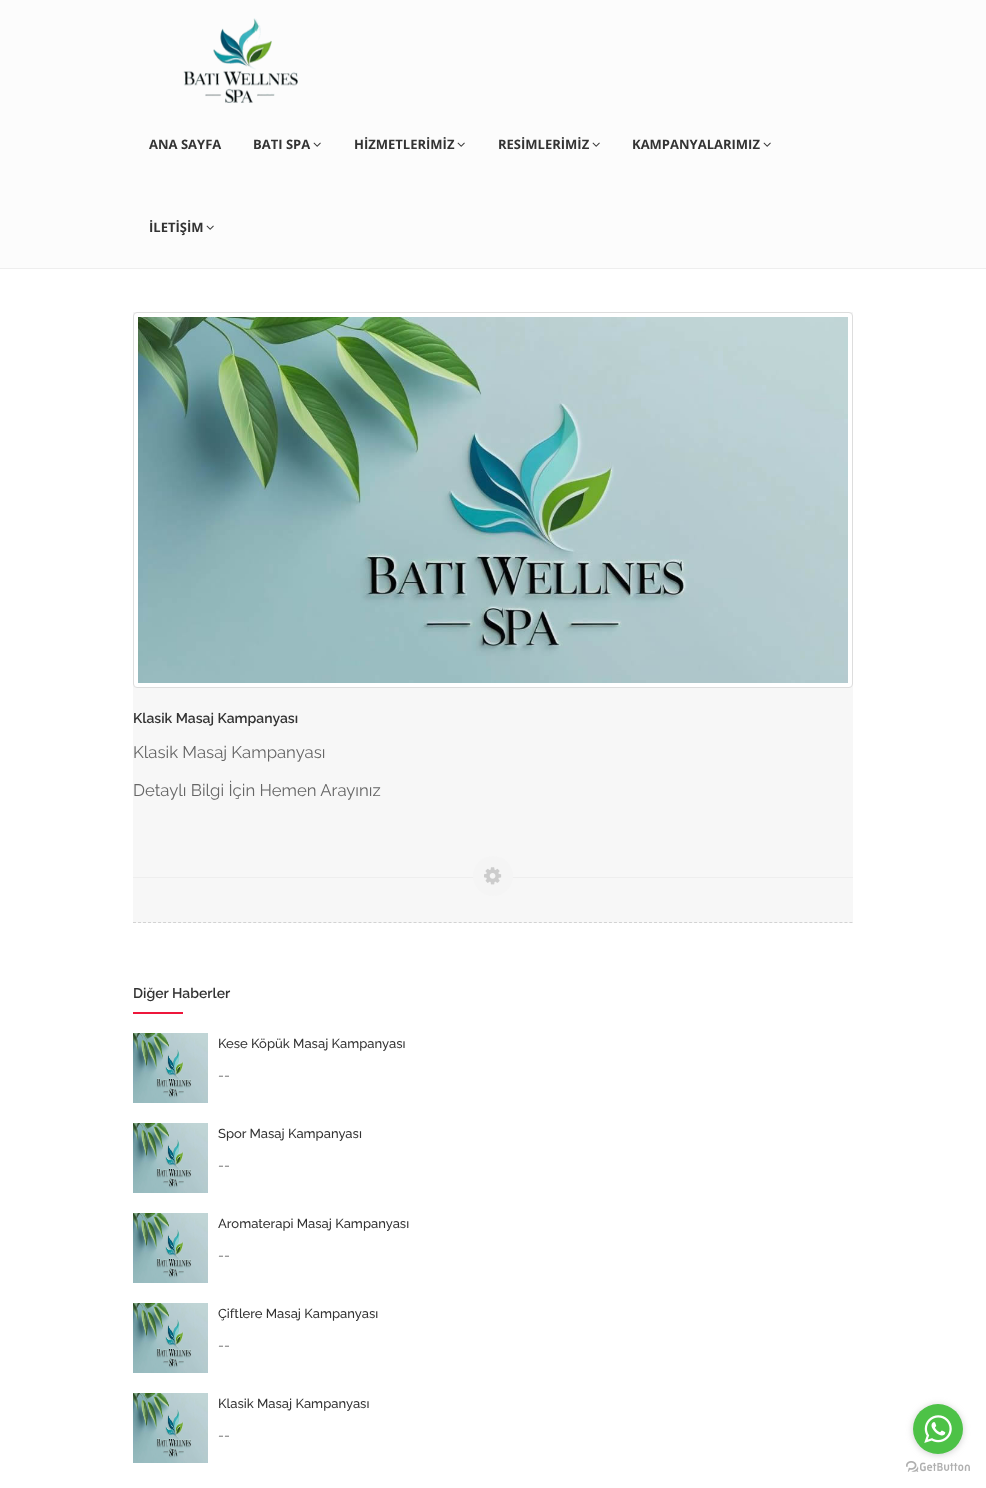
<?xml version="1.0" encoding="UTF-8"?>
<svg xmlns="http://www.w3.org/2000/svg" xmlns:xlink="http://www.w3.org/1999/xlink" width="986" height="1488">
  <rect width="100%" height="100%" fill="#ffffff" />
  <rect width="986" height="268" fill="#fcfcfc" />
  <rect y="268" width="986" height="1" fill="#eeeeee" />
  <image x="183" y="18" width="115" height="85" xlink:href="image1.png" />
  <image x="313" y="142" width="8" height="5" xlink:href="image2.png" />
  <image x="457" y="142" width="8" height="5" xlink:href="image2.png" />
  <image x="592" y="142" width="8" height="5" xlink:href="image2.png" />
  <image x="763" y="142" width="8" height="5" xlink:href="image2.png" />
  <image x="206" y="225" width="8" height="5" xlink:href="image2.png" />
  <rect x="133" y="312" width="720" height="611" fill="#f7f7f7" />
  <path d="M 133 922.5 h 720" fill="none" stroke="#d3d3d3" stroke-dasharray="3 2.01" />
  <rect x="133.5" y="312.5" width="719" height="375" rx="3.5" fill="#ffffff" stroke="#dddddd" />
  <image x="138" y="317" width="710" height="366" xlink:href="image3.png" />
  <rect x="133" y="877" width="341" height="1" fill="#eeeeee" />
  <rect x="512" y="877" width="341" height="1" fill="#eeeeee" />
  <circle cx="493" cy="876" r="20" fill="#f5f5f5" />
  <image x="484" y="867" width="18" height="18" xlink:href="image4.png" />
  <rect x="133" y="1012" width="50" height="2" fill="#ee163b" />
  <image x="133" y="1033" width="75" height="70" xlink:href="image5.png" />
  <image x="133" y="1123" width="75" height="70" xlink:href="image5.png" />
  <image x="133" y="1213" width="75" height="70" xlink:href="image5.png" />
  <image x="133" y="1303" width="75" height="70" xlink:href="image5.png" />
  <image x="133" y="1393" width="75" height="70" xlink:href="image5.png" />
  <image x="906" y="1461" width="64" height="11" xlink:href="image7.png" />
  <rect x="913" y="1405" width="50" height="50" rx="25" fill="#888888" fill-opacity="0.4" filter="blur(3.5px)" />
  <circle cx="938" cy="1429" r="25" fill="#4dc247" />
  <image x="924" y="1415" width="28" height="28" xlink:href="image6.png" />
  <text x="149" y="149" style="font-family: Open Sans; font-size: 13px; font-weight: bold; fill: #333333">ANA SAYFA</text>
  <text x="253" y="149" style="font-family: Open Sans; font-size: 13px; font-weight: bold; fill: #333333">BATI SPA</text>
  <text x="354" y="149" style="font-family: Open Sans; font-size: 13px; font-weight: bold; fill: #333333">HİZMETLERİMİZ</text>
  <text x="498" y="149" style="font-family: Open Sans; font-size: 13px; font-weight: bold; fill: #333333">RESİMLERİMİZ</text>
  <text x="632" y="149" style="font-family: Open Sans; font-size: 13px; font-weight: bold; fill: #333333">KAMPANYALARIMIZ</text>
  <text x="149" y="232" style="font-family: Open Sans; font-size: 13px; font-weight: bold; fill: #333333">İLETİŞİM</text>
  <text x="133" y="723" style="font-family: Raleway; font-size: 14px; font-weight: 600; fill: #333333">Klasik Masaj Kampanyası</text>
  <text x="133" y="758" style="font-family: Raleway; font-size: 16.75px; fill: #666666">Klasik Masaj Kampanyası</text>
  <text x="133" y="796" style="font-family: Raleway; font-size: 16.75px; fill: #666666">Detaylı Bilgi İçin Hemen Arayınız</text>
  <text x="133" y="998" style="font-family: Raleway; font-size: 14px; font-weight: 600; fill: #333333">Diğer Haberler</text>
  <text x="218" y="1048" style="font-family: Raleway; font-size: 13px; font-weight: 500; fill: #333333">Kese Köpük Masaj Kampanyası</text>
  <text x="218" y="1080" style="font-family: Raleway; font-size: 14px; fill: #666666">--</text>
  <text x="218" y="1138" style="font-family: Raleway; font-size: 13px; font-weight: 500; fill: #333333">Spor Masaj Kampanyası</text>
  <text x="218" y="1170" style="font-family: Raleway; font-size: 14px; fill: #666666">--</text>
  <text x="218" y="1228" style="font-family: Raleway; font-size: 13px; font-weight: 500; fill: #333333">Aromaterapi Masaj Kampanyası</text>
  <text x="218" y="1260" style="font-family: Raleway; font-size: 14px; fill: #666666">--</text>
  <text x="218" y="1318" style="font-family: Raleway; font-size: 13px; font-weight: 500; fill: #333333">Çiftlere Masaj Kampanyası</text>
  <text x="218" y="1350" style="font-family: Raleway; font-size: 14px; fill: #666666">--</text>
  <text x="218" y="1408" style="font-family: Raleway; font-size: 13px; font-weight: 500; fill: #333333">Klasik Masaj Kampanyası</text>
  <text x="218" y="1440" style="font-family: Raleway; font-size: 14px; fill: #666666">--</text>
</svg>
